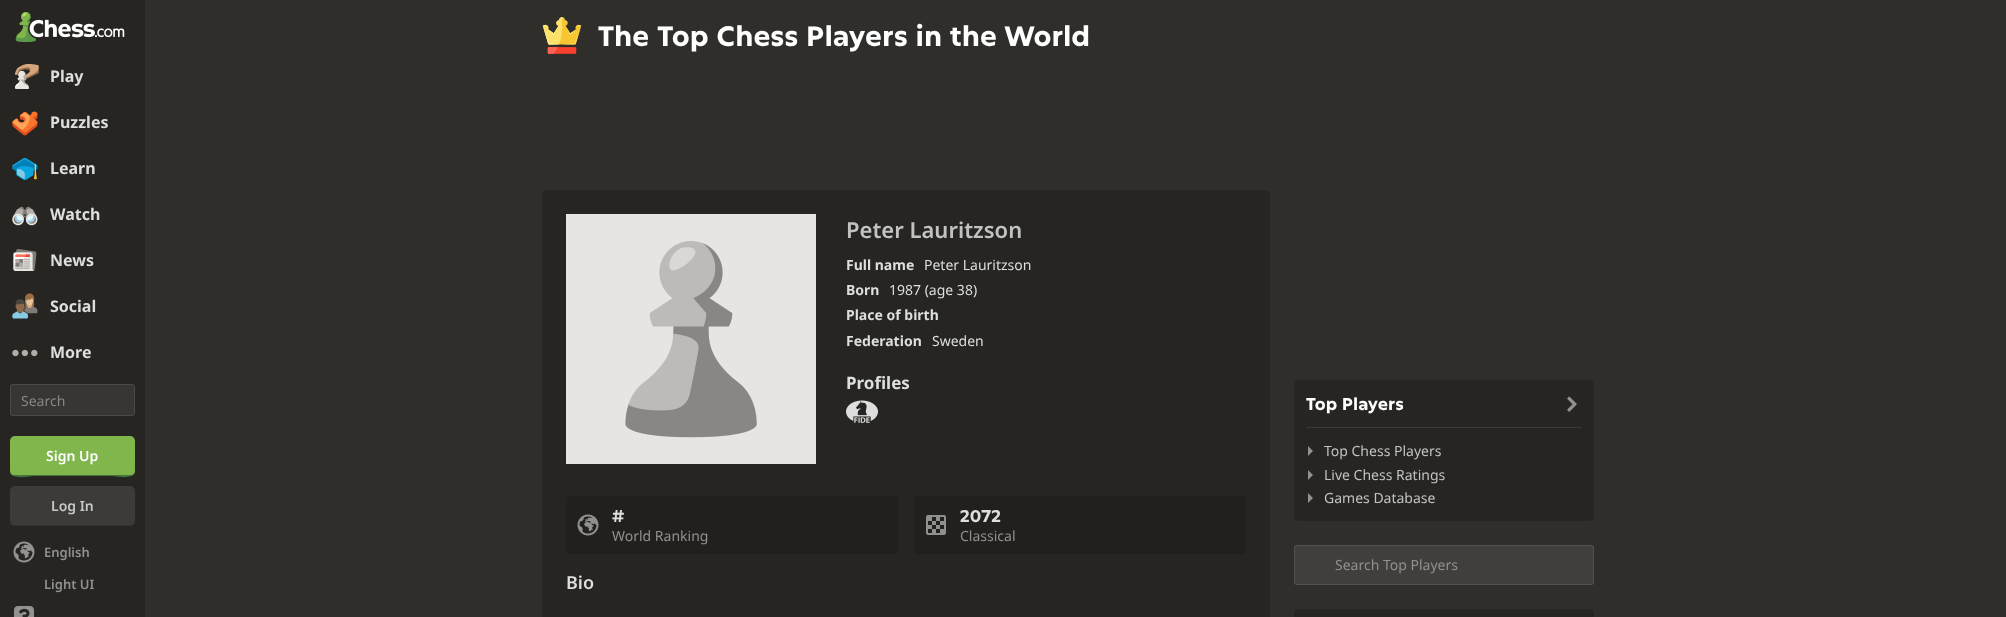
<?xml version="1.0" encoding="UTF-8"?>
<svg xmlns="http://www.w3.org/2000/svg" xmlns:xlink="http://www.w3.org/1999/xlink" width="2006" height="617">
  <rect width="100%" height="100%" fill="#302e2b" />
  <rect width="145" height="617" fill="#262522" />
  <image x="15" y="12" width="110" height="30" xlink:href="image1.png" />
  <image x="15" y="64" width="24" height="25" xlink:href="image2.png" />
  <image x="12" y="111" width="26" height="25" xlink:href="image3.png" />
  <image x="12" y="158" width="26" height="22" xlink:href="image4.png" />
  <image x="12" y="206" width="26" height="20" xlink:href="image5.png" />
  <image x="13" y="249" width="24" height="22" xlink:href="image6.png" />
  <image x="12" y="293" width="26" height="26" xlink:href="image7.png" />
  <image x="12" y="349" width="26" height="8" xlink:href="image8.png" />
  <rect x="10" y="384" width="125" height="32" rx="3" fill="#373634" />
  <rect x="10.5" y="384.5" width="124" height="31" rx="2.5" fill="none" stroke="#ffffff" stroke-opacity="0.1" />
  <rect x="10" y="436" width="125" height="40" rx="5" fill="#81b64c" />
  <path d="M 10 470 c 0 11 20 6 24 6 h 77 c 4 0 24 5 24 -6 c 0 3 -2 5 -5 5 h -115 c -3 0 -5 -2 -5 -5 z" fill="#45753c" />
  <rect x="10" y="486" width="125" height="40" rx="5" fill="#3c3b38" />
  <path d="M 10 520 c 0 11 20 6 24 6 h 77 c 4 0 24 5 24 -6 c 0 3 -2 5 -5 5 h -115 c -3 0 -5 -2 -5 -5 z" fill="#000000" fill-opacity="0.1" />
  <image x="13" y="541" width="22" height="22" xlink:href="image9.png" />
  <image x="14" y="606" width="20" height="11" xlink:href="image10.png" />
  <image x="542" y="17" width="40" height="37" xlink:href="image11.png" />
  <rect x="542" y="190" width="728" height="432" rx="5" fill="#262522" />
  <image x="566" y="214" width="250" height="250" xlink:href="image12.png" />
  <image x="846" y="400" width="32" height="23" xlink:href="image13.png" />
  <rect x="566" y="496" width="333" height="58" rx="5" fill="#21201d" />
  <image x="577" y="514" width="22" height="22" xlink:href="image14.png" />
  <rect x="914" y="496" width="332" height="58" rx="5" fill="#21201d" />
  <image x="926" y="515" width="20" height="20" xlink:href="image15.png" />
  <rect x="1294" y="380" width="300" height="141" rx="5" fill="#262522" />
  <image x="1567" y="396" width="10" height="16" xlink:href="image16.png" />
  <rect x="1306" y="427" width="276" height="1" fill="#3c3b38" />
  <path d="M 1308 456 v -10 l 5 5 z" fill="#939291" />
  <path d="M 1308 480 v -10 l 5 5 z" fill="#939291" />
  <path d="M 1308 503 v -10 l 5 5 z" fill="#939291" />
  <rect x="1294" y="545" width="300" height="40" rx="3" fill="#413f3c" />
  <rect x="1294.5" y="545.5" width="299" height="39" rx="2.5" fill="none" stroke="#ffffff" stroke-opacity="0.1" />
  <rect x="1294" y="609" width="300" height="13" rx="5" fill="#262522" />
  <text x="50" y="82" style="font-family: Noto Sans; font-size: 16px; font-weight: bold; fill: #dedede">Play</text>
  <text x="50" y="128" style="font-family: Noto Sans; font-size: 16px; font-weight: bold; fill: #dedede">Puzzles</text>
  <text x="50" y="174" style="font-family: Noto Sans; font-size: 16px; font-weight: bold; fill: #dedede">Learn</text>
  <text x="50" y="220" style="font-family: Noto Sans; font-size: 16px; font-weight: bold; fill: #dedede">Watch</text>
  <text x="50" y="266" style="font-family: Noto Sans; font-size: 16px; font-weight: bold; fill: #dedede">News</text>
  <text x="50" y="312" style="font-family: Noto Sans; font-size: 16px; font-weight: bold; fill: #dedede">Social</text>
  <text x="50" y="358" style="font-family: Noto Sans; font-size: 16px; font-weight: bold; fill: #dedede">More</text>
  <text x="21" y="406" style="font-family: Noto Sans; font-size: 14px; fill: #878685">Search</text>
  <text x="46" y="461" style="font-family: Noto Sans; font-size: 14px; font-weight: 600; fill: #ffffff">Sign Up</text>
  <text x="51" y="511" style="font-family: Noto Sans; font-size: 14px; font-weight: 600; fill: #c8c8c7">Log In</text>
  <text x="44" y="557" style="font-family: Noto Sans; font-size: 13px; font-weight: 600; fill: #90908e">English</text>
  <text x="44" y="589" style="font-family: Noto Sans; font-size: 13px; font-weight: 600; fill: #90908e">Light UI</text>
  <text x="598" y="46" style="font-family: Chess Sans; font-size: 28px; font-weight: bold; fill: #ffffff">The Top Chess Players in the World</text>
  <text x="846" y="238" style="font-family: Noto Sans; font-size: 22px; font-weight: 600; fill: #c2c2c1">Peter Lauritzson</text>
  <text x="846" y="270" style="font-family: Noto Sans; font-size: 14px; font-weight: bold; fill: #dedede">Full name</text>
  <text x="924" y="270" style="font-family: Noto Sans; font-size: 14px; fill: #dedede">Peter Lauritzson</text>
  <text x="846" y="295" style="font-family: Noto Sans; font-size: 14px; font-weight: bold; fill: #dedede">Born</text>
  <text x="889" y="295" style="font-family: Noto Sans; font-size: 14px; fill: #dedede">1987 (age 38)</text>
  <text x="846" y="320" style="font-family: Noto Sans; font-size: 14px; font-weight: bold; fill: #dedede">Place of birth</text>
  <text x="846" y="346" style="font-family: Noto Sans; font-size: 14px; font-weight: bold; fill: #dedede">Federation</text>
  <text x="932" y="346" style="font-family: Noto Sans; font-size: 14px; fill: #dedede">Sweden</text>
  <text x="846" y="389" style="font-family: Noto Sans; font-size: 17px; font-weight: bold; fill: #dedede">Profiles</text>
  <text x="612" y="522" style="font-family: Chess Sans; font-size: 17px; font-weight: bold; fill: #dedede">#</text>
  <text x="612" y="541" style="font-family: Noto Sans; font-size: 14px; fill: #90908e">World Ranking</text>
  <text x="960" y="522" style="font-family: Chess Sans; font-size: 17px; font-weight: bold; fill: #dedede">2072</text>
  <text x="960" y="541" style="font-family: Noto Sans; font-size: 14px; fill: #90908e">Classical</text>
  <text x="566" y="589" style="font-family: Noto Sans; font-size: 18px; font-weight: 600; fill: #dedede">Bio</text>
  <text x="1306" y="410" style="font-family: Chess Sans; font-size: 17px; font-weight: bold; fill: #ffffff">Top Players</text>
  <text x="1324" y="456" style="font-family: Noto Sans; font-size: 14px; fill: #c2c2c1">Top Chess Players</text>
  <text x="1324" y="480" style="font-family: Noto Sans; font-size: 14px; fill: #c2c2c1">Live Chess Ratings</text>
  <text x="1324" y="503" style="font-family: Noto Sans; font-size: 14px; fill: #c2c2c1">Games Database</text>
  <text x="1335" y="570" style="font-family: Noto Sans; font-size: 14px; fill: #90908e">Search Top Players</text>
</svg>
